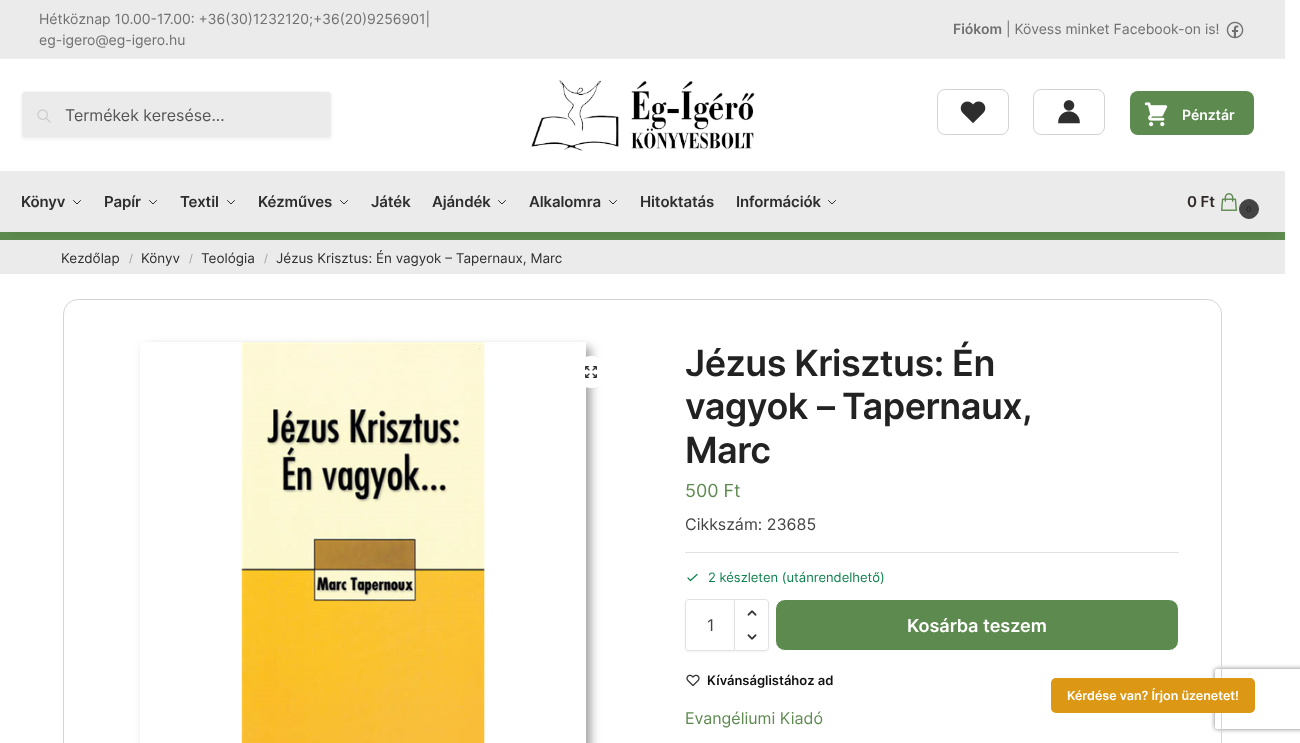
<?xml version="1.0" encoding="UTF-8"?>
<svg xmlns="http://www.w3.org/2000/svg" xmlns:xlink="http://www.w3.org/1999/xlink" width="1300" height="743">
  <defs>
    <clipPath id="clip1"><path d="M 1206 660 h 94 v 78 h -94 z m 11 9 h 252 c 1 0 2 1 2 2 v 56 c 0 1 -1 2 -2 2 h -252 c -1 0 -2 -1 -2 -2 v -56 c 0 -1 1 -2 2 -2 z" clip-rule="evenodd" /></clipPath>
    <clipPath id="clip2"><path d="M 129 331 h 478 v 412 h -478 z m 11 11 h 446 v 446 h -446 z" clip-rule="evenodd" /></clipPath>
  </defs>
  <rect width="100%" height="100%" fill="#ffffff" />
  <rect width="1285" height="58" fill="#ebebeb" />
  <rect y="58" width="1285" height="1" fill="#eeeeee" />
  <image x="1226" y="21" width="18" height="18" xlink:href="image1.png" />
  <rect x="21" y="92" width="311" height="48" rx="5" fill="#000000" fill-opacity="0.05" filter="blur(1px)" />
  <rect x="21.5" y="91.5" width="310" height="47" rx="4.5" fill="#ebebeb" stroke="#f8f8f8" />
  <image x="37" y="109" width="14" height="14" xlink:href="image2.png" />
  <image x="531" y="80" width="224" height="71" xlink:href="image3.png" />
  <rect x="937.5" y="89.5" width="71" height="45" rx="7.5" fill="none" stroke="#d3d3d3" />
  <image x="960" y="101" width="26" height="22" xlink:href="image4.png" />
  <rect x="1033.5" y="89.5" width="71" height="45" rx="7.5" fill="none" stroke="#d3d3d3" />
  <image x="1058" y="100" width="22" height="24" xlink:href="image5.png" />
  <rect x="1130" y="91" width="124" height="44" rx="8" fill="#5d8a4f" />
  <image x="1144" y="102" width="24" height="25" xlink:href="image6.png" />
  <rect y="232" width="1285" height="8" fill="#5d8a4f" />
  <rect y="240" width="1285" height="34" fill="#ebebeb" />
  <rect x="15" y="201" width="1255" height="31" fill="#000000" fill-opacity="0.1" filter="blur(5px)" />
  <rect y="171" width="1285" height="61" fill="#ebebeb" />
  <path d="M 80.5 200.5 l -3.5 3.5 l -3.5 -3.5" fill="none" stroke="#2e2e2e" stroke-linecap="round" stroke-linejoin="round" />
  <path d="M 156.5 200.5 l -3.5 3.5 l -3.5 -3.5" fill="none" stroke="#2e2e2e" stroke-linecap="round" stroke-linejoin="round" />
  <path d="M 234.5 200.5 l -3.5 3.5 l -3.5 -3.5" fill="none" stroke="#2e2e2e" stroke-linecap="round" stroke-linejoin="round" />
  <path d="M 347.5 200.5 l -3.5 3.5 l -3.5 -3.5" fill="none" stroke="#2e2e2e" stroke-linecap="round" stroke-linejoin="round" />
  <path d="M 505.5 200.5 l -3.5 3.5 l -3.5 -3.5" fill="none" stroke="#2e2e2e" stroke-linecap="round" stroke-linejoin="round" />
  <path d="M 616.5 200.5 l -3.5 3.5 l -3.5 -3.5" fill="none" stroke="#2e2e2e" stroke-linecap="round" stroke-linejoin="round" />
  <path d="M 835.5 200.5 l -3.5 3.5 l -3.5 -3.5" fill="none" stroke="#2e2e2e" stroke-linecap="round" stroke-linejoin="round" />
  <image x="1221" y="193" width="16" height="18" xlink:href="image7.png" />
  <circle cx="1249" cy="209" r="9.5" fill="#444444" stroke="#444444" />
  <g clip-path="url(#clip1)">
    <rect x="1215" y="669" width="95" height="60" rx="2" fill="#808080" filter="blur(2.5px)" />
  </g>
  <rect x="63.5" y="299.5" width="1158" height="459" rx="14.5" fill="none" stroke="#d4d4d4" />
  <g clip-path="url(#clip2)">
    <rect x="145" y="347" width="446" height="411" fill="#4b4b4b" fill-opacity="0.5" filter="blur(5px)" />
  </g>
  <image x="241" y="342" width="244" height="401" xlink:href="image8.png" />
  <circle cx="591" cy="372" r="16" fill="#ffffff" />
  <image x="585" y="366" width="12" height="12" xlink:href="image9.png" />
  <rect x="685" y="552" width="494" height="1" fill="#e2e2e2" />
  <path d="M 688 578 l 2.5 2.5 l 6.5 -6" fill="none" stroke="#0f834d" stroke-width="1.2" stroke-linecap="round" stroke-linejoin="round" />
  <rect x="685" y="600" width="50" height="52" rx="4" fill="#000000" fill-opacity="0.05" filter="blur(1px)" />
  <path d="M 689 599.5 h 45.5 v 51 h -45.5 c -2 0 -3.5 -1.5 -3.5 -3.5 v -44 c 0 -2 1.5 -3.5 3.5 -3.5 z" fill="#ffffff" stroke="#e2e2e2" />
  <rect x="734" y="600" width="35" height="52" rx="4" fill="#000000" fill-opacity="0.05" filter="blur(1px)" />
  <path d="M 734.5 599.5 h 30.5 c 2 0 3.5 1.5 3.5 3.5 v 44 c 0 2 -1.5 3.5 -3.5 3.5 h -30.5 z" fill="#ffffff" stroke="#e2e2e2" />
  <image x="747" y="610" width="10" height="6" xlink:href="image10.png" />
  <image x="747" y="634" width="10" height="6" xlink:href="image11.png" />
  <rect x="775.5" y="599.5" width="403" height="51" rx="9.5" fill="#5d8a4f" stroke="#ffffff" />
  <image x="686" y="674" width="14" height="13" xlink:href="image12.png" />
  <rect x="1051" y="678" width="204" height="35" rx="5" fill="#dc9814" />
  <text x="39" y="24" style="font-family: Inter; font-size: 14px; fill: #707070">Hétköznap 10.00-17.00: +36(30)1232120;+36(20)9256901|</text>
  <text x="39" y="45" style="font-family: Inter; font-size: 14px; fill: #707070">eg-igero@eg-igero.hu</text>
  <text x="953" y="34" style="font-family: Inter; font-size: 14px; font-weight: 600; fill: #707070">Fiókom</text>
  <text x="1006" y="34" style="font-family: Inter; font-size: 14px; fill: #707070">| Kövess minket Facebook-on is!</text>
  <text x="65" y="121" style="font-family: Inter; font-size: 16px; fill: #555555">Termékek keresése...</text>
  <text x="1182" y="120" style="font-family: Inter; font-size: 14px; font-weight: 600; fill: #ffffff">Pénztár</text>
  <text x="21" y="207" style="font-family: Inter; font-size: 15px; font-weight: 600; letter-spacing: -0.1px; fill: #2e2e2e">Könyv</text>
  <text x="104" y="207" style="font-family: Inter; font-size: 15px; font-weight: 600; letter-spacing: -0.1px; fill: #2e2e2e">Papír</text>
  <text x="180" y="207" style="font-family: Inter; font-size: 15px; font-weight: 600; letter-spacing: -0.1px; fill: #2e2e2e">Textil</text>
  <text x="258" y="207" style="font-family: Inter; font-size: 15px; font-weight: 600; letter-spacing: -0.1px; fill: #2e2e2e">Kézműves</text>
  <text x="371" y="207" style="font-family: Inter; font-size: 15px; font-weight: 600; letter-spacing: -0.1px; fill: #2e2e2e">Játék</text>
  <text x="432" y="207" style="font-family: Inter; font-size: 15px; font-weight: 600; letter-spacing: -0.1px; fill: #2e2e2e">Ajándék</text>
  <text x="529" y="207" style="font-family: Inter; font-size: 15px; font-weight: 600; letter-spacing: -0.1px; fill: #2e2e2e">Alkalomra</text>
  <text x="640" y="207" style="font-family: Inter; font-size: 15px; font-weight: 600; letter-spacing: -0.1px; fill: #2e2e2e">Hitoktatás</text>
  <text x="736" y="207" style="font-family: Inter; font-size: 15px; font-weight: 600; letter-spacing: -0.1px; fill: #2e2e2e">Információk</text>
  <text x="1187" y="207" style="font-family: Inter; font-size: 15px; font-weight: 600; letter-spacing: -0.1px; fill: #2e2926">0 Ft</text>
  <text x="1246" y="212" style="font-family: Inter; font-size: 8px; font-weight: 600; letter-spacing: -0.1px; fill: #2e2926">0</text>
  <text x="61" y="263" style="font-family: Inter; font-size: 13.5px; fill: #2e2e2e">Kezdőlap</text>
  <text x="129" y="262" style="font-family: Inter; font-size: 11px; fill: #9f9f9f">/</text>
  <text x="141" y="263" style="font-family: Inter; font-size: 13.5px; fill: #2e2e2e">Könyv</text>
  <text x="189" y="262" style="font-family: Inter; font-size: 11px; fill: #9f9f9f">/</text>
  <text x="201" y="263" style="font-family: Inter; font-size: 13.5px; fill: #2e2e2e">Teológia</text>
  <text x="264" y="262" style="font-family: Inter; font-size: 11px; fill: #9f9f9f">/</text>
  <text x="276" y="263" style="font-family: Inter; font-size: 13.5px; fill: #2e2e2e">Jézus Krisztus: Én vagyok – Tapernaux, Marc</text>
  <text x="685" y="376" style="font-family: Inter; font-size: 36px; font-weight: 600; letter-spacing: -0.5px; fill: #222222">Jézus Krisztus: Én</text>
  <text x="685" y="419" style="font-family: Inter; font-size: 36px; font-weight: 600; letter-spacing: -0.5px; fill: #222222">vagyok</text>
  <text x="817" y="419" word-spacing="-1" style="font-family: Inter; font-size: 36px; font-weight: 600; letter-spacing: -0.5px; fill: #222222">– Tapernaux,</text>
  <text x="685" y="463" style="font-family: Inter; font-size: 36px; font-weight: 600; letter-spacing: -0.5px; fill: #222222">Marc</text>
  <text x="685" y="497" style="font-family: Inter; font-size: 18px; fill: #5d8a4f">500 Ft</text>
  <text x="685" y="530" style="font-family: Inter; font-size: 16px; fill: #444444">Cikkszám: 23685</text>
  <text x="708" y="582" style="font-family: Inter; font-size: 13px; fill: #0f834d">2 készleten (utánrendelhető)</text>
  <text x="707" y="631" style="font-family: Inter; font-size: 16px; fill: #444444">1</text>
  <text x="907" y="632" style="font-family: Inter; font-size: 18px; font-weight: 600; fill: #ffffff">Kosárba teszem</text>
  <text x="707" y="685" style="font-family: Inter; font-size: 13px; font-weight: 600; fill: #111111">Kívánságlistához ad</text>
  <text x="685" y="724" style="font-family: Inter; font-size: 16px; fill: #5d8a4f">Evangéliumi Kiadó</text>
  <text x="1067" y="700" style="font-family: Inter; font-size: 12.5px; font-weight: 600; fill: #ffffff">Kérdése van? Írjon üzenetet!</text>
</svg>
